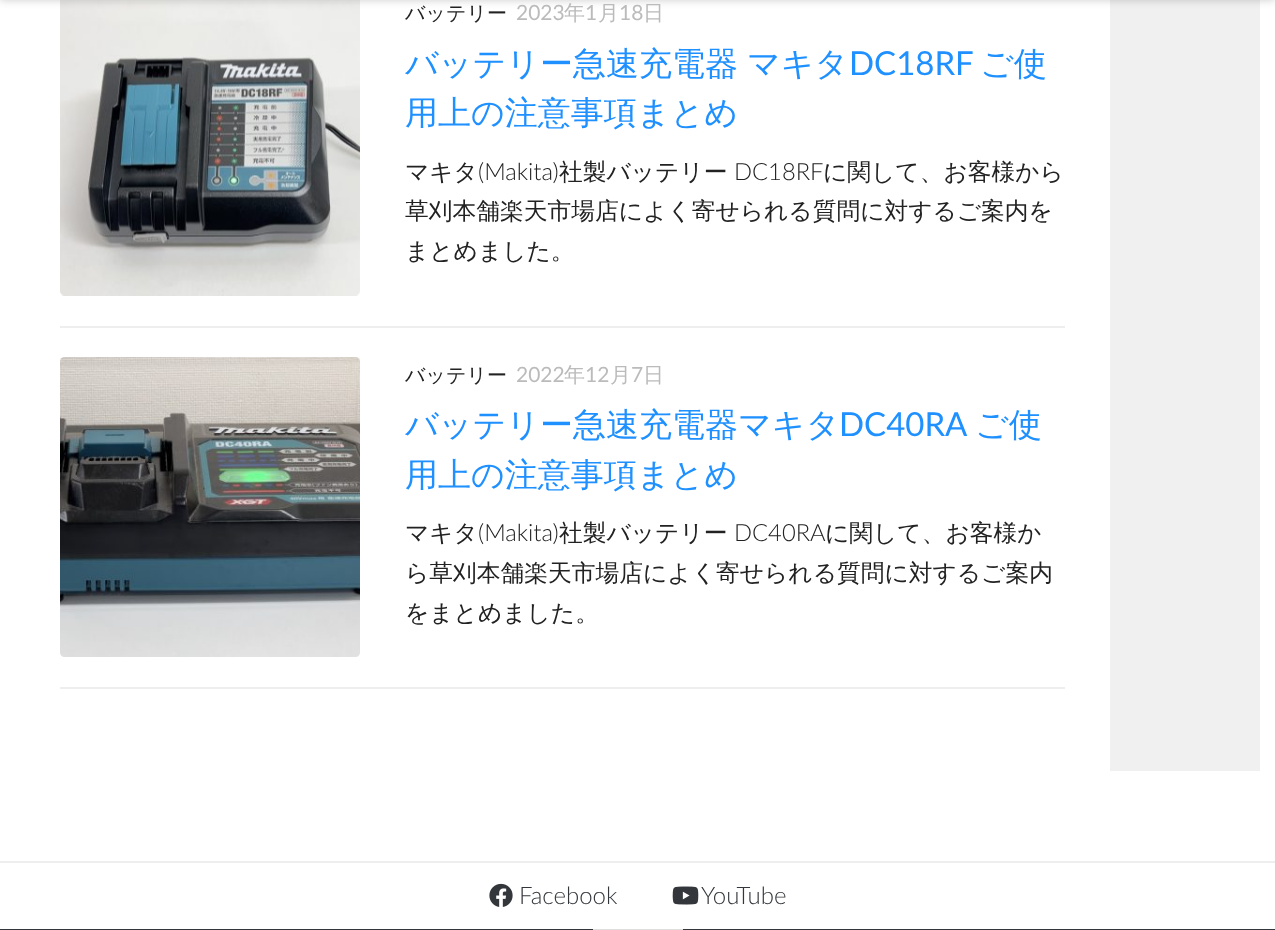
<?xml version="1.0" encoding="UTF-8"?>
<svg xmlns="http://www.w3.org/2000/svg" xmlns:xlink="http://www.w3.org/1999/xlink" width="1275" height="930">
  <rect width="100%" height="100%" fill="#ffffff" />
  <image x="60" y="0" width="300" height="296" xlink:href="image1.png" />
  <rect x="60" width="300" height="2" fill="#ffffff" fill-opacity="0.15" />
  <rect x="1110" width="150" height="771" fill="#f0f0f0" />
  <rect y="-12" width="1275" height="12" fill="#000000" fill-opacity="0.2" filter="blur(4px)" />
  <rect x="60" y="326" width="1005" height="2" fill="#eeeeee" />
  <rect x="60" y="687" width="1005" height="2" fill="#eeeeee" />
  <image x="60" y="357" width="300" height="300" xlink:href="image2.png" />
  <rect y="861" width="1275" height="2" fill="#eeeeee" />
  <image x="489" y="883" width="24" height="24" xlink:href="image3.png" />
  <image x="672" y="886" width="27" height="19" xlink:href="image4.png" />
  <rect y="929" width="1275" height="1" fill="#33363b" />
  <path d="M 593 929 v 1 h 89 v 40 l -1 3 c 1 -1 2 -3 2 -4 v -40 z" fill="#dedede" />
  <text x="405" y="20" style="font-family: WenQuanYi Zen Hei; font-size: 20px; font-weight: 500; fill: #222222">バッテリー</text>
  <text x="516" y="20" style="font-family: Lato; font-size: 21px; fill: #bbbbbb">2023</text>
  <text x="564" y="20" style="font-family: WenQuanYi Zen Hei; font-size: 21px; font-weight: 500; fill: #bbbbbb">年</text>
  <text x="585" y="20" style="font-family: Lato; font-size: 21px; fill: #bbbbbb">1</text>
  <text x="598" y="20" style="font-family: WenQuanYi Zen Hei; font-size: 21px; font-weight: 500; fill: #bbbbbb">月</text>
  <text x="619" y="20" style="font-family: Lato; font-size: 21px; fill: #bbbbbb">18</text>
  <text x="643" y="20" style="font-family: WenQuanYi Zen Hei; font-size: 21px; font-weight: 500; fill: #bbbbbb">日</text>
  <text x="405" y="75" word-spacing="-1" style="font-family: WenQuanYi Zen Hei; font-size: 33px; font-weight: 500; fill: #1e90ff">バッテリー急速充電器 マキタ</text>
  <text x="849" y="75" style="font-family: Lato; font-size: 33px; fill: #1e90ff">DC18RF</text>
  <text x="980" y="75" style="font-family: WenQuanYi Zen Hei; font-size: 33px; font-weight: 500; fill: #1e90ff">ご使</text>
  <text x="405" y="124" style="font-family: WenQuanYi Zen Hei; font-size: 33px; font-weight: 500; fill: #1e90ff">用上の注意事項まとめ</text>
  <text x="405" y="180" style="font-family: WenQuanYi Zen Hei; font-size: 23.75px; font-weight: 500; fill: #222222">マキタ</text>
  <text x="478" y="180" style="font-family: Lato; font-size: 23.75px; font-weight: 300; fill: #222222">(Makita)</text>
  <text x="559" y="180" style="font-family: WenQuanYi Zen Hei; font-size: 23.75px; font-weight: 500; fill: #222222">社製バッテリー</text>
  <text x="734" y="180" style="font-family: Lato; font-size: 23.75px; font-weight: 300; fill: #222222">DC18RF</text>
  <text x="823" y="180" style="font-family: WenQuanYi Zen Hei; font-size: 23.75px; font-weight: 500; fill: #222222">に関して、お客様から</text>
  <text x="405" y="219" style="font-family: WenQuanYi Zen Hei; font-size: 23.75px; font-weight: 500; fill: #222222">草刈本舗楽天市場店によく寄せられる質問に対するご案内を</text>
  <text x="405" y="259" style="font-family: WenQuanYi Zen Hei; font-size: 23.75px; font-weight: 500; fill: #222222">まとめました。</text>
  <text x="405" y="382" style="font-family: WenQuanYi Zen Hei; font-size: 20px; font-weight: 500; fill: #222222">バッテリー</text>
  <text x="516" y="382" style="font-family: Lato; font-size: 21px; fill: #bbbbbb">2022</text>
  <text x="564" y="382" style="font-family: WenQuanYi Zen Hei; font-size: 21px; font-weight: 500; fill: #bbbbbb">年</text>
  <text x="585" y="382" style="font-family: Lato; font-size: 21px; fill: #bbbbbb">12</text>
  <text x="610" y="382" style="font-family: WenQuanYi Zen Hei; font-size: 21px; font-weight: 500; fill: #bbbbbb">月</text>
  <text x="631" y="382" style="font-family: Lato; font-size: 21px; fill: #bbbbbb">7</text>
  <text x="643" y="382" style="font-family: WenQuanYi Zen Hei; font-size: 21px; font-weight: 500; fill: #bbbbbb">日</text>
  <text x="405" y="436" style="font-family: WenQuanYi Zen Hei; font-size: 33px; font-weight: 500; fill: #1e90ff">バッテリー急速充電器マキタ</text>
  <text x="839" y="436" style="font-family: Lato; font-size: 33px; fill: #1e90ff">DC40RA</text>
  <text x="975" y="436" style="font-family: WenQuanYi Zen Hei; font-size: 33px; font-weight: 500; fill: #1e90ff">ご使</text>
  <text x="405" y="486" style="font-family: WenQuanYi Zen Hei; font-size: 33px; font-weight: 500; fill: #1e90ff">用上の注意事項まとめ</text>
  <text x="405" y="541" style="font-family: WenQuanYi Zen Hei; font-size: 23.75px; font-weight: 500; fill: #222222">マキタ</text>
  <text x="478" y="541" style="font-family: Lato; font-size: 23.75px; font-weight: 300; fill: #222222">(Makita)</text>
  <text x="559" y="541" style="font-family: WenQuanYi Zen Hei; font-size: 23.75px; font-weight: 500; fill: #222222">社製バッテリー</text>
  <text x="734" y="541" style="font-family: Lato; font-size: 23.75px; font-weight: 300; fill: #222222">DC40RA</text>
  <text x="825" y="541" style="font-family: WenQuanYi Zen Hei; font-size: 23.75px; font-weight: 500; fill: #222222">に関して、お客様か</text>
  <text x="405" y="581" style="font-family: WenQuanYi Zen Hei; font-size: 23.75px; font-weight: 500; fill: #222222">ら草刈本舗楽天市場店によく寄せられる質問に対するご案内</text>
  <text x="405" y="621" style="font-family: WenQuanYi Zen Hei; font-size: 23.75px; font-weight: 500; fill: #222222">をまとめました。</text>
  <text x="519" y="904" style="font-family: Lato; font-size: 24px; font-weight: 300; fill: #33363b">Facebook</text>
  <text x="701" y="904" style="font-family: Lato; font-size: 24px; font-weight: 300; fill: #33363b">YouTube</text>
</svg>
